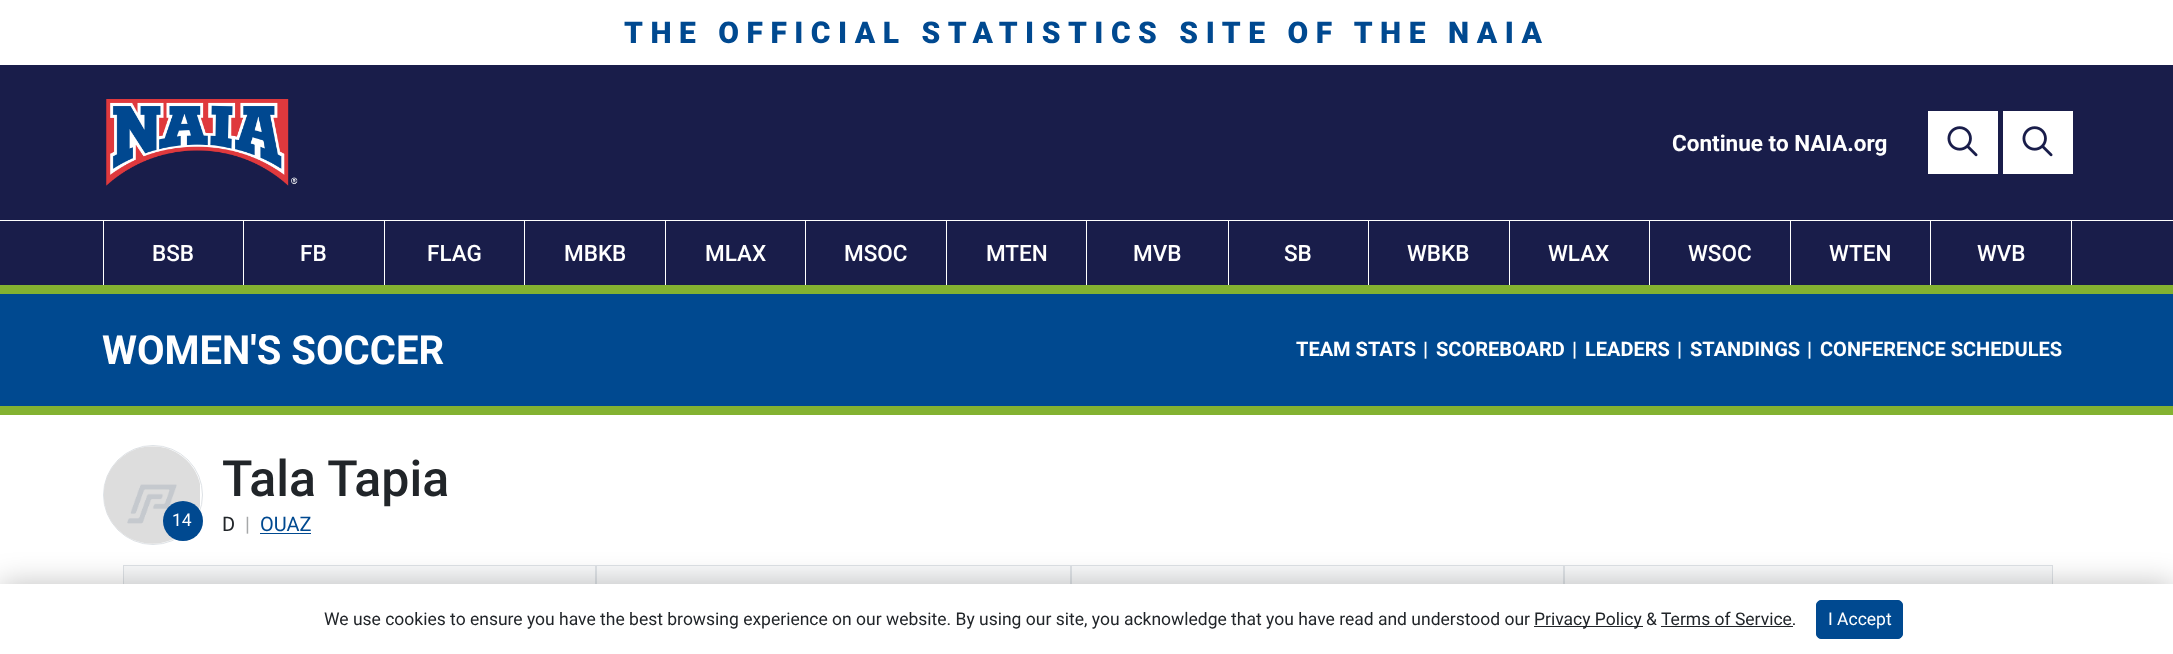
<?xml version="1.0" encoding="UTF-8"?>
<svg xmlns="http://www.w3.org/2000/svg" xmlns:xlink="http://www.w3.org/1999/xlink" width="2173" height="654">
  <rect width="100%" height="100%" fill="#ffffff" />
  <rect y="406" width="2173" height="9" fill="#83b231" />
  <rect y="65" width="2173" height="155" fill="#191d4a" />
  <image x="106" y="99" width="192" height="87" xlink:href="image1.png" />
  <rect x="1928" y="111" width="70" height="63" fill="#ffffff" />
  <image x="1947" y="126" width="31" height="31" xlink:href="image2.png" />
  <rect x="2003" y="111" width="70" height="63" fill="#ffffff" />
  <image x="2022" y="126" width="31" height="31" xlink:href="image2.png" />
  <rect y="221" width="2173" height="64" fill="#191d4a" />
  <rect x="243" y="221" width="1" height="64" fill="#ffffff" />
  <rect x="103" y="221" width="1" height="64" fill="#ffffff" />
  <rect x="384" y="221" width="1" height="64" fill="#ffffff" />
  <rect x="524" y="221" width="1" height="64" fill="#ffffff" />
  <rect x="665" y="221" width="1" height="64" fill="#ffffff" />
  <rect x="805" y="221" width="1" height="64" fill="#ffffff" />
  <rect x="946" y="221" width="1" height="64" fill="#ffffff" />
  <rect x="1086" y="221" width="1" height="64" fill="#ffffff" />
  <rect x="1228" y="221" width="1" height="64" fill="#ffffff" />
  <rect x="1368" y="221" width="1" height="64" fill="#ffffff" />
  <rect x="1509" y="221" width="1" height="64" fill="#ffffff" />
  <rect x="1649" y="221" width="1" height="64" fill="#ffffff" />
  <rect x="1790" y="221" width="1" height="64" fill="#ffffff" />
  <rect x="1930" y="221" width="1" height="64" fill="#ffffff" />
  <rect x="2071" y="221" width="1" height="64" fill="#ffffff" />
  <rect y="294" width="2173" height="112" fill="#004990" />
  <rect y="285" width="2173" height="9" fill="#83b231" />
  <circle cx="153" cy="495" r="49.5" fill="none" stroke="#dee2e6" />
  <image x="104" y="446" width="96" height="98" xlink:href="image3.png" />
  <circle cx="183" cy="521" r="20" fill="#004990" />
  <rect x="260" y="533" width="51" height="1" fill="#004990" />
  <rect x="124" y="566" width="1928" height="18" fill="#f8f9fa" />
  <rect x="123.5" y="565.5" width="472" height="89" fill="none" stroke="#dee2e6" />
  <rect x="596.5" y="565.5" width="474" height="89" fill="none" stroke="#dee2e6" />
  <rect x="1071.5" y="565.5" width="492" height="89" fill="none" stroke="#dee2e6" />
  <rect x="1564.5" y="565.5" width="488" height="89" fill="none" stroke="#dee2e6" />
  <rect y="584" width="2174" height="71" fill="#000000" fill-opacity="0.25" filter="blur(15px)" />
  <rect y="584" width="2173" height="70" fill="#ffffff" />
  <rect x="1534" y="626" width="109" height="1" fill="#212529" />
  <rect x="1661" y="626" width="132" height="1" fill="#212529" />
  <rect x="1816.5" y="600.5" width="86" height="38" rx="4.5" fill="#004990" stroke="#004990" />
  <text x="624" y="43" style="font-family: Roboto; font-size: 30px; font-weight: 900; letter-spacing: 7.5px; fill: #004990">THE OFFICIAL STATISTICS SITE OF THE NAIA</text>
  <text x="1672" y="151" style="font-family: Roboto; font-size: 22.5px; font-weight: bold; fill: #ffffff">Continue to NAIA.org</text>
  <text x="152" y="261" style="font-family: Roboto; font-size: 22.5px; font-weight: 500; fill: #ffffff">BSB</text>
  <text x="300" y="261" style="font-family: Roboto; font-size: 22.5px; font-weight: 500; fill: #ffffff">FB</text>
  <text x="427" y="261" style="font-family: Roboto; font-size: 22.5px; font-weight: 500; fill: #ffffff">FLAG</text>
  <text x="564" y="261" style="font-family: Roboto; font-size: 22.5px; font-weight: 500; fill: #ffffff">MBKB</text>
  <text x="705" y="261" style="font-family: Roboto; font-size: 22.5px; font-weight: 500; fill: #ffffff">MLAX</text>
  <text x="844" y="261" style="font-family: Roboto; font-size: 22.5px; font-weight: 500; fill: #ffffff">MSOC</text>
  <text x="986" y="261" style="font-family: Roboto; font-size: 22.5px; font-weight: 500; fill: #ffffff">MTEN</text>
  <text x="1133" y="261" style="font-family: Roboto; font-size: 22.5px; font-weight: 500; fill: #ffffff">MVB</text>
  <text x="1284" y="261" style="font-family: Roboto; font-size: 22.5px; font-weight: 500; fill: #ffffff">SB</text>
  <text x="1407" y="261" style="font-family: Roboto; font-size: 22.5px; font-weight: 500; fill: #ffffff">WBKB</text>
  <text x="1548" y="261" style="font-family: Roboto; font-size: 22.5px; font-weight: 500; fill: #ffffff">WLAX</text>
  <text x="1688" y="261" style="font-family: Roboto; font-size: 22.5px; font-weight: 500; fill: #ffffff">WSOC</text>
  <text x="1829" y="261" style="font-family: Roboto; font-size: 22.5px; font-weight: 500; fill: #ffffff">WTEN</text>
  <text x="1977" y="261" style="font-family: Roboto; font-size: 22.5px; font-weight: 500; fill: #ffffff">WVB</text>
  <text x="102" y="364" style="font-family: Roboto; font-size: 40px; font-weight: bold; fill: #ffffff">WOMEN'S SOCCER</text>
  <text x="1296" y="356" style="font-family: Roboto; font-size: 20px; font-weight: bold; fill: #ffffff">TEAM STATS</text>
  <text x="1423" y="356" style="font-family: Roboto; font-size: 20px; font-weight: bold; fill: #ffffff">|</text>
  <text x="1436" y="356" style="font-family: Roboto; font-size: 20px; font-weight: bold; fill: #ffffff">SCOREBOARD</text>
  <text x="1572" y="356" style="font-family: Roboto; font-size: 20px; font-weight: bold; fill: #ffffff">|</text>
  <text x="1585" y="356" style="font-family: Roboto; font-size: 20px; font-weight: bold; fill: #ffffff">LEADERS</text>
  <text x="1677" y="356" style="font-family: Roboto; font-size: 20px; font-weight: bold; fill: #ffffff">|</text>
  <text x="1690" y="356" style="font-family: Roboto; font-size: 20px; font-weight: bold; fill: #ffffff">STANDINGS</text>
  <text x="1807" y="356" style="font-family: Roboto; font-size: 20px; font-weight: bold; fill: #ffffff">|</text>
  <text x="1820" y="356" style="font-family: Roboto; font-size: 20px; font-weight: bold; fill: #ffffff">CONFERENCE SCHEDULES</text>
  <text x="172" y="526" style="font-family: Roboto; font-size: 17.5px; fill: #ffffff">14</text>
  <text x="222" y="496" style="font-family: Roboto; font-size: 50px; font-weight: 500; fill: #212529">Tala Tapia</text>
  <text x="222" y="531" style="font-family: Roboto; font-size: 20px; fill: #212529">D</text>
  <text x="245" y="531" style="font-family: Roboto; font-size: 20px; fill: #a6a8a9">|</text>
  <text x="260" y="531" style="font-family: Roboto; font-size: 20px; fill: #004990">OUAZ</text>
  <text x="324" y="625" style="font-family: Roboto; font-size: 17.5px; fill: #212529">We use cookies to ensure you have the best browsing experience on our website. By using our site, you acknowledge that you have read and understood our</text>
  <text x="1534" y="625" style="font-family: Roboto; font-size: 17.5px; fill: #212529">Privacy Policy &amp;</text>
  <text x="1661" y="625" style="font-family: Roboto; font-size: 17.5px; fill: #212529">Terms of Service.</text>
  <text x="1828" y="625" style="font-family: Roboto; font-size: 17.5px; fill: #ffffff">I Accept</text>
</svg>
